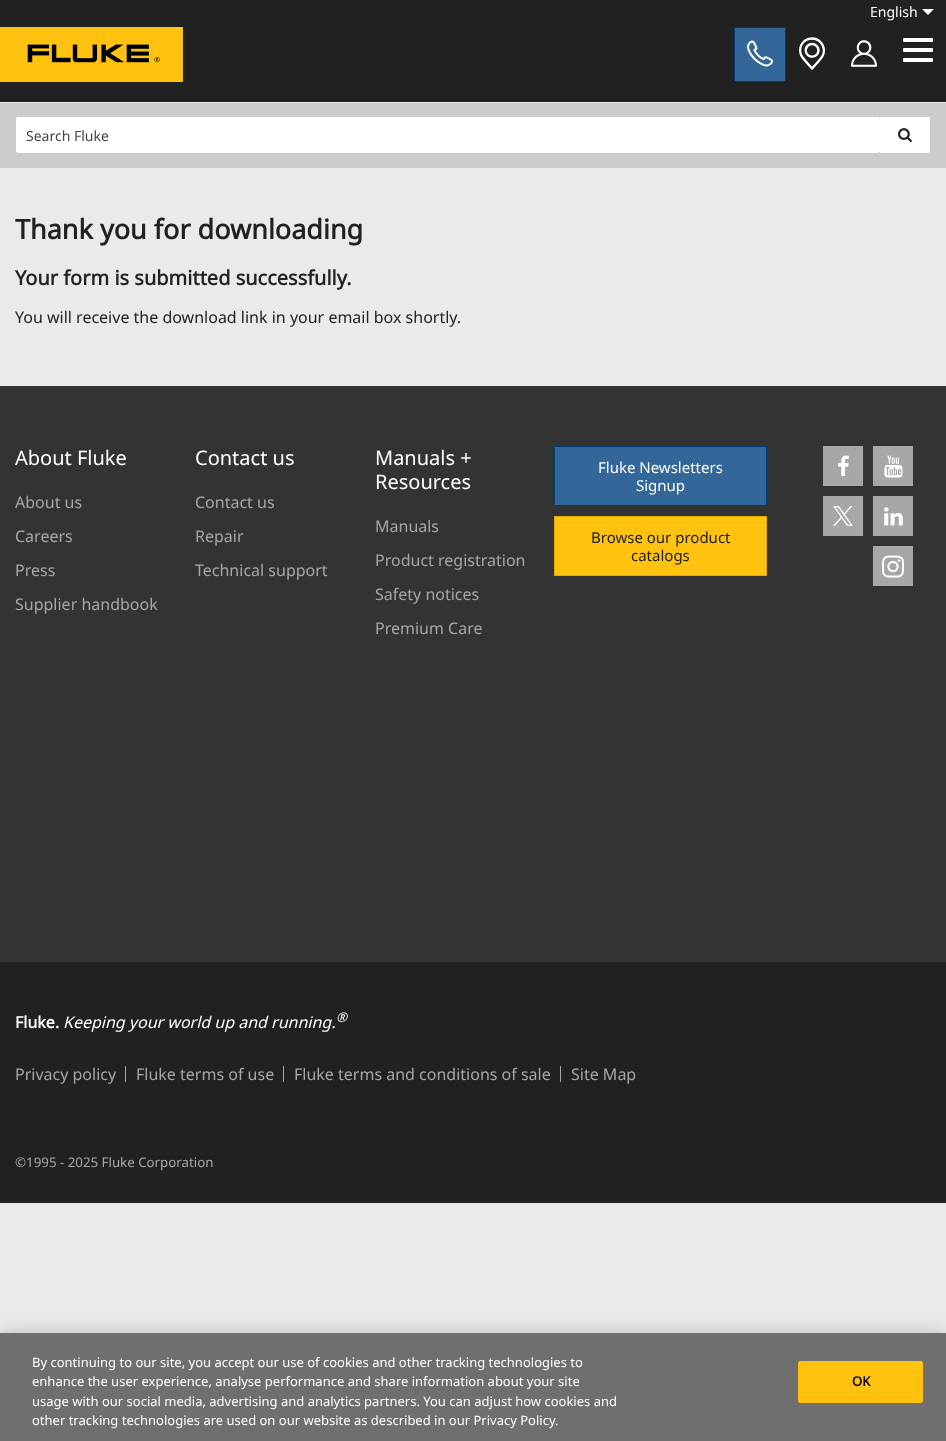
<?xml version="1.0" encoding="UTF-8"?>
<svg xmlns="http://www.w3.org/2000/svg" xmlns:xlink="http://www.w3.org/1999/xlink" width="946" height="1441">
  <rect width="100%" height="100%" fill="#eaeaea" />
  <rect width="946" height="102" fill="#212121" />
  <path d="M 922 9 h 12 l -6 6 z" fill="#ffffff" />
  <image x="0" y="27" width="183" height="55" xlink:href="image1.png" />
  <rect x="734.5" y="27.5" width="51" height="54" fill="#336699" stroke="#003b78" />
  <image x="747" y="40" width="26" height="27" xlink:href="image2.png" />
  <image x="799" y="37" width="26" height="33" xlink:href="image3.png" />
  <image x="851" y="40" width="26" height="27" xlink:href="image4.png" />
  <rect x="903" y="38" width="30" height="4" rx="1" fill="#ffffff" />
  <rect x="903" y="48" width="30" height="4" rx="1" fill="#ffffff" />
  <rect x="903" y="58" width="30" height="4" rx="1" fill="#ffffff" />
  <rect y="103" width="946" height="65" fill="#cccccc" />
  <rect x="16" y="117" width="864" height="36" rx="2" fill="#ffffff" />
  <rect x="880" y="117" width="50" height="36" fill="#ffffff" />
  <image x="898" y="128" width="14" height="15" xlink:href="image5.png" />
  <rect y="386" width="946" height="576" fill="#333333" />
  <rect x="554.5" y="446.5" width="212" height="59" fill="#336699" stroke="#003b78" />
  <rect x="554.5" y="516.5" width="212" height="59" fill="#ffc20e" stroke="#e4aa00" />
  <rect x="823" y="446" width="40" height="40" fill="#a7a7a7" />
  <image x="838" y="455" width="11" height="21" xlink:href="image6.png" />
  <rect x="873" y="446" width="40" height="40" fill="#a7a7a7" />
  <image x="884" y="455" width="19" height="23" xlink:href="image7.png" />
  <rect x="823" y="496" width="40" height="40" fill="#a7a7a7" />
  <image x="833" y="506" width="20" height="20" xlink:href="image8.png" />
  <rect x="873" y="496" width="40" height="40" fill="#a7a7a7" />
  <image x="884" y="507" width="19" height="19" xlink:href="image9.png" />
  <rect x="873" y="546" width="40" height="40" fill="#a7a7a7" />
  <image x="882" y="555" width="22" height="23" xlink:href="image10.png" />
  <rect y="962" width="946" height="241" fill="#212121" />
  <rect x="125" y="1066" width="1" height="16" fill="#a7a7a7" />
  <rect x="283" y="1066" width="1" height="16" fill="#a7a7a7" />
  <rect x="560" y="1066" width="1" height="16" fill="#a7a7a7" />
  <rect y="1333" width="946" height="108" fill="#000000" fill-opacity="0.2" filter="blur(9px)" />
  <rect y="1333" width="946" height="108" fill="#6f6f6f" />
  <rect x="798.5" y="1361.5" width="124" height="41" rx="1.5" fill="#ffc20e" stroke="#ffc20e" />
  <text x="870" y="17" style="font-family: Noto Sans; font-size: 14px; fill: #ffffff">English</text>
  <text x="26" y="141" style="font-family: Noto Sans; font-size: 14px; fill: #454545">Search Fluke</text>
  <text x="15" y="239" style="font-family: Noto Sans; font-size: 27px; font-weight: bold; fill: #212121">Thank you for downloading</text>
  <text x="15" y="285" style="font-family: Noto Sans; font-size: 20px; font-weight: bold; fill: #212121">Your form is submitted successfully.</text>
  <text x="15" y="323" style="font-family: Noto Sans; font-size: 16px; fill: #212121">You will receive the download link in your email box shortly.</text>
  <text x="15" y="465" style="font-family: Noto Sans; font-size: 20px; fill: #ffffff">About Fluke</text>
  <text x="15" y="508" style="font-family: Noto Sans; font-size: 16px; fill: #a7a7a7">About us</text>
  <text x="15" y="542" style="font-family: Noto Sans; font-size: 16px; fill: #a7a7a7">Careers</text>
  <text x="15" y="576" style="font-family: Noto Sans; font-size: 16px; fill: #a7a7a7">Press</text>
  <text x="15" y="610" style="font-family: Noto Sans; font-size: 16px; fill: #a7a7a7">Supplier handbook</text>
  <text x="195" y="465" style="font-family: Noto Sans; font-size: 20px; fill: #ffffff">Contact us</text>
  <text x="195" y="508" style="font-family: Noto Sans; font-size: 16px; fill: #a7a7a7">Contact us</text>
  <text x="195" y="542" style="font-family: Noto Sans; font-size: 16px; fill: #a7a7a7">Repair</text>
  <text x="195" y="576" style="font-family: Noto Sans; font-size: 16px; fill: #a7a7a7">Technical support</text>
  <text x="375" y="465" style="font-family: Noto Sans; font-size: 20px; fill: #ffffff">Manuals +</text>
  <text x="375" y="489" style="font-family: Noto Sans; font-size: 20px; fill: #ffffff">Resources</text>
  <text x="375" y="532" style="font-family: Noto Sans; font-size: 16px; fill: #a7a7a7">Manuals</text>
  <text x="375" y="566" style="font-family: Noto Sans; font-size: 16px; fill: #a7a7a7">Product registration</text>
  <text x="375" y="600" style="font-family: Noto Sans; font-size: 16px; fill: #a7a7a7">Safety notices</text>
  <text x="375" y="634" style="font-family: Noto Sans; font-size: 16px; fill: #a7a7a7">Premium Care</text>
  <text x="598" y="473" style="font-family: Noto Sans; font-size: 15px; fill: #ffffff">Fluke Newsletters</text>
  <text x="636" y="491" style="font-family: Noto Sans; font-size: 15px; fill: #ffffff">Signup</text>
  <text x="591" y="543" style="font-family: Noto Sans; font-size: 15px; fill: #212121">Browse our product</text>
  <text x="631" y="561" style="font-family: Noto Sans; font-size: 15px; fill: #212121">catalogs</text>
  <text x="15" y="1028" style="font-family: Noto Sans; font-size: 16px; font-weight: bold; fill: #ffffff">Fluke.</text>
  <text x="63" y="1028" style="font-family: Noto Sans; font-size: 16px; font-style: italic; fill: #ffffff">Keeping your world up and running.</text>
  <text x="336" y="1022" style="font-family: Noto Sans; font-size: 13.3px; font-style: italic; fill: #ffffff">®</text>
  <text x="15" y="1080" style="font-family: Noto Sans; font-size: 16px; fill: #a7a7a7">Privacy policy</text>
  <text x="136" y="1080" style="font-family: Noto Sans; font-size: 16px; fill: #a7a7a7">Fluke terms of use</text>
  <text x="294" y="1080" style="font-family: Noto Sans; font-size: 16px; fill: #a7a7a7">Fluke terms and conditions of sale</text>
  <text x="571" y="1080" style="font-family: Noto Sans; font-size: 16px; fill: #a7a7a7">Site Map</text>
  <text x="15" y="1167" style="font-family: Noto Sans; font-size: 13.3px; fill: #a7a7a7">©1995 - 2025 Fluke Corporation</text>
  <text x="32" y="1367" style="font-family: Noto Sans; font-size: 13px; fill: #ffffff">By continuing to our site, you accept our use of cookies and other tracking technologies to</text>
  <text x="32" y="1386" style="font-family: Noto Sans; font-size: 13px; fill: #ffffff">enhance the user experience, analyse performance and share information about your site</text>
  <text x="32" y="1406" style="font-family: Noto Sans; font-size: 13px; fill: #ffffff">usage with our social media, advertising and analytics partners. You can adjust how cookies and</text>
  <text x="32" y="1425" style="font-family: Noto Sans; font-size: 13px; fill: #ffffff">other tracking technologies are used on our website as described in our Privacy Policy.</text>
  <text x="852" y="1386" style="font-family: Noto Sans; font-size: 13px; font-weight: bold; fill: #000000">OK</text>
</svg>
